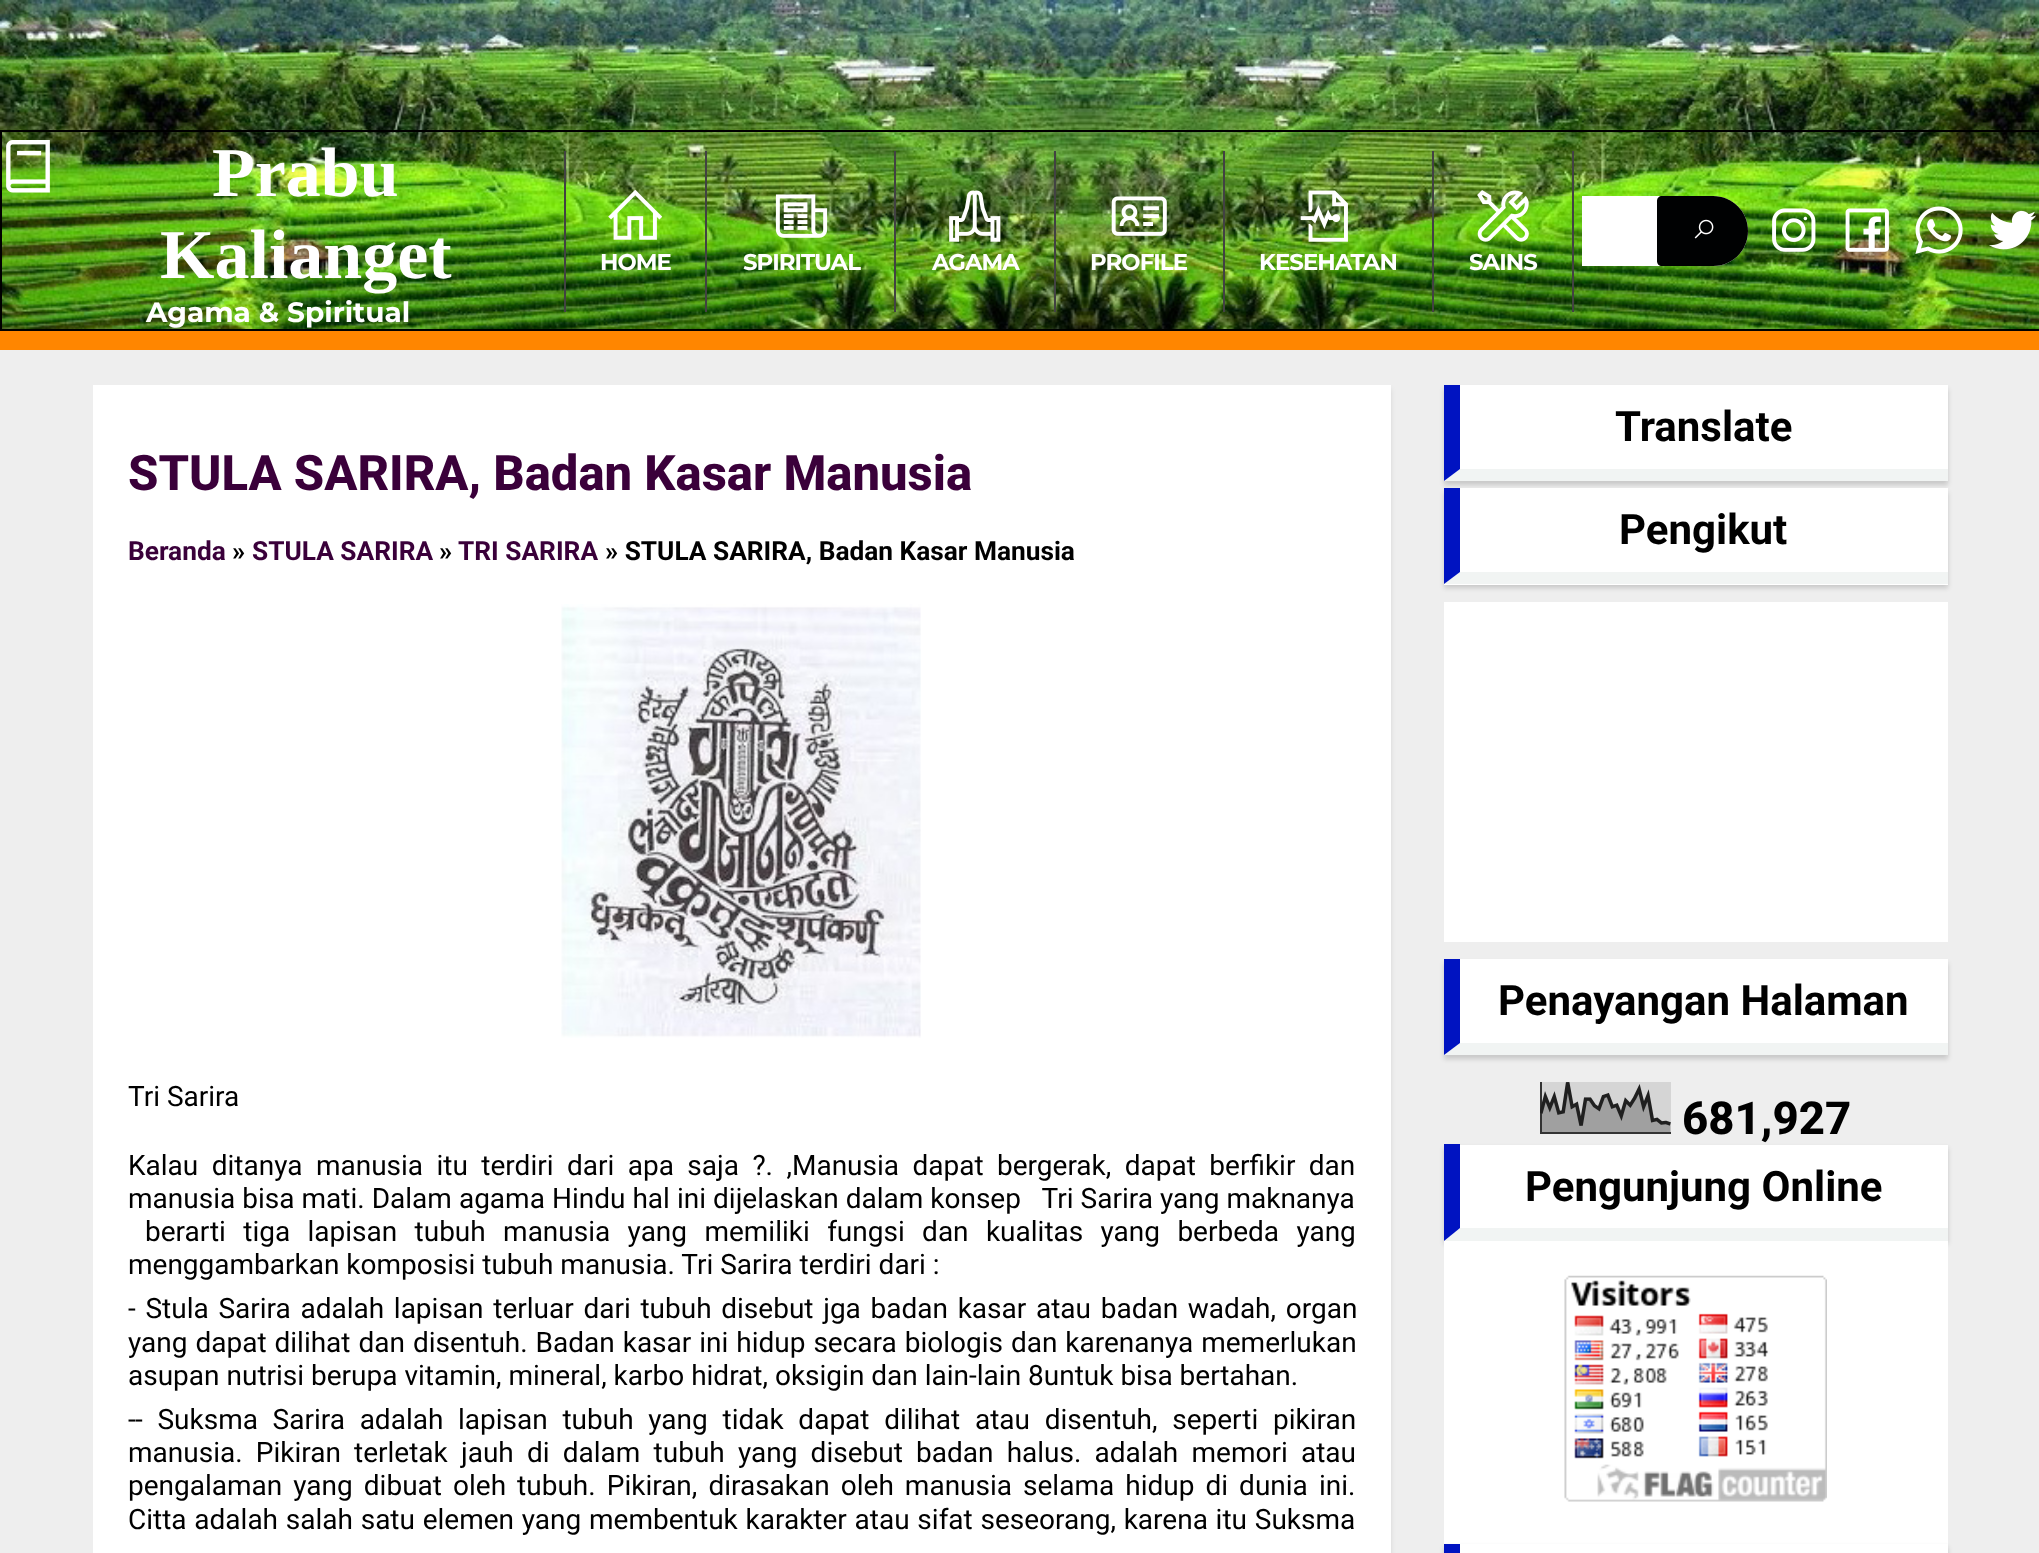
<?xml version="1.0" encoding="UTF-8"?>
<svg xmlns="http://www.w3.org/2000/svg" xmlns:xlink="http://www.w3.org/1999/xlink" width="2039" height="1553">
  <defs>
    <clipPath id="clip1"><rect x="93" y="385" width="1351" height="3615" /></clipPath>
  </defs>
  <rect width="100%" height="100%" fill="#eeeeee" />
  <image x="0" y="0" width="2039" height="329" xlink:href="image1.png" />
  <rect y="331" width="2039" height="19" fill="#ff8600" />
  <rect x="1" y="131" width="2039" height="199" fill="none" stroke="#000000" stroke-width="2" />
  <image x="6" y="140" width="44" height="53" xlink:href="image2.png" />
  <path d="M 1582 196 h 131 c 19.5 0 35 15.5 35 35 c 0 19.5 -15.5 35 -35 35 h -131 z" fill="#ffffff" />
  <path d="M 1662 196 h 51 c 19.5 0 35 15.5 35 35 c 0 19.5 -15.5 35 -35 35 h -51 c -3 0 -5 -2 -5 -5 v -60 c 0 -3 2 -5 5 -5 z" fill="#000102" />
  <image x="1694" y="219" width="20" height="20" xlink:href="image3.png" />
  <image x="1772" y="208" width="44" height="44" xlink:href="image4.png" />
  <image x="1845" y="208" width="44" height="44" xlink:href="image5.png" />
  <image x="1915" y="206" width="48" height="48" xlink:href="image6.png" />
  <image x="1989" y="210" width="47" height="40" xlink:href="image7.png" />
  <rect x="705" y="151" width="2" height="161" fill="#424242" />
  <rect x="564" y="151" width="2" height="161" fill="#424242" />
  <image x="608" y="189" width="55" height="51" xlink:href="image8.png" />
  <rect x="894" y="151" width="2" height="161" fill="#424242" />
  <image x="775" y="194" width="53" height="44" xlink:href="image9.png" />
  <rect x="1054" y="151" width="2" height="161" fill="#424242" />
  <image x="949" y="190" width="52" height="52" xlink:href="image10.png" />
  <rect x="1223" y="151" width="2" height="161" fill="#424242" />
  <image x="1111" y="196" width="56" height="40" xlink:href="image11.png" />
  <rect x="1432" y="151" width="2" height="161" fill="#424242" />
  <image x="1300" y="190" width="48" height="52" xlink:href="image12.png" />
  <rect x="1572" y="151" width="2" height="161" fill="#424242" />
  <image x="1477" y="190" width="52" height="52" xlink:href="image13.png" />
  <g clip-path="url(#clip1)">
    <rect x="93" y="389" width="1298" height="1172" fill="#000000" fill-opacity="0.1" filter="blur(2.5px)" />
  </g>
  <rect x="93" y="385" width="1298" height="1168" fill="#ffffff" />
  <image x="561" y="604" width="360" height="434" xlink:href="image14.png" />
  <rect x="1444" y="389" width="504" height="96" fill="#000000" fill-opacity="0.1" filter="blur(2.5px)" />
  <rect x="1444" y="389" width="504" height="96" fill="#000000" fill-opacity="0.06" filter="blur(2.5px)" />
  <rect x="1444" y="385" width="504" height="96" fill="#ffffff" />
  <path d="M 1948 481 h -504 l 16 -12 h 488 z" fill="#f1f4f3" />
  <path d="M 1444 481 v -96 h 16 v 84 z" fill="#0013c1" />
  <rect x="1444" y="492" width="504" height="96" fill="#000000" fill-opacity="0.1" filter="blur(2.5px)" />
  <rect x="1444" y="492" width="504" height="96" fill="#000000" fill-opacity="0.06" filter="blur(2.5px)" />
  <rect x="1444" y="488" width="504" height="97" fill="#ffffff" />
  <path d="M 1948 584 h -504 l 16 -12 h 488 z" fill="#f1f4f3" />
  <path d="M 1444 584 v -96 h 16 v 84 z" fill="#0013c1" />
  <rect x="1444" y="602" width="504" height="340" fill="#ffffff" />
  <rect x="1444" y="963" width="504" height="96" fill="#000000" fill-opacity="0.1" filter="blur(2.5px)" />
  <rect x="1444" y="963" width="504" height="96" fill="#000000" fill-opacity="0.06" filter="blur(2.5px)" />
  <rect x="1444" y="959" width="504" height="96" fill="#ffffff" />
  <path d="M 1948 1055 h -504 l 16 -12 h 488 z" fill="#f1f4f3" />
  <path d="M 1444 1055 v -96 h 16 v 84 z" fill="#0013c1" />
  <image x="1540" y="1082" width="131" height="52" xlink:href="image15.png" />
  <rect x="1444" y="1148" width="504" height="96" fill="#000000" fill-opacity="0.1" filter="blur(2.5px)" />
  <rect x="1444" y="1148" width="504" height="96" fill="#000000" fill-opacity="0.06" filter="blur(2.5px)" />
  <rect x="1444" y="1145" width="504" height="399" fill="#ffffff" />
  <path d="M 1948 1241 h -504 l 16 -13 h 488 z" fill="#f1f4f3" />
  <path d="M 1444 1241 v -97 h 16 v 84 z" fill="#0013c1" />
  <image x="1564" y="1275" width="263" height="227" xlink:href="image16.png" />
  <rect x="1444" y="1547" width="504" height="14" fill="#000000" fill-opacity="0.1" filter="blur(2.5px)" />
  <rect x="1444" y="1547" width="504" height="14" fill="#000000" fill-opacity="0.06" filter="blur(2.5px)" />
  <rect x="1460" y="1544" width="488" height="9" fill="#ffffff" />
  <path d="M 1444 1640 v -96 h 16 v 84 z" fill="#0013c1" />
  <text x="212" y="196" style="font-family: Liberation Serif; font-size: 70px; font-weight: bold; fill: #ffffff">Prabu</text>
  <text x="160" y="278" style="font-family: Liberation Serif; font-size: 70px; font-weight: bold; fill: #ffffff">Kalianget</text>
  <text x="146" y="322" style="font-family: Montserrat; font-size: 28px; font-weight: bold; fill: #ffffff">Agama &amp; Spiritual</text>
  <text x="600" y="270" style="font-family: Montserrat; font-size: 22.75px; font-weight: bold; letter-spacing: -0.9px; fill: #ffffff">HOME</text>
  <text x="743" y="270" style="font-family: Montserrat; font-size: 22.75px; font-weight: bold; letter-spacing: -0.9px; fill: #ffffff">SPIRITUAL</text>
  <text x="932" y="270" style="font-family: Montserrat; font-size: 22.75px; font-weight: bold; letter-spacing: -0.9px; fill: #ffffff">AGAMA</text>
  <text x="1090" y="270" style="font-family: Montserrat; font-size: 22.75px; font-weight: bold; letter-spacing: -0.9px; fill: #ffffff">PROFILE</text>
  <text x="1259" y="270" style="font-family: Montserrat; font-size: 22.75px; font-weight: bold; letter-spacing: -0.9px; fill: #ffffff">KESEHATAN</text>
  <text x="1469" y="270" style="font-family: Montserrat; font-size: 22.75px; font-weight: bold; letter-spacing: -0.9px; fill: #ffffff">SAINS</text>
  <text x="128" y="490" style="font-family: Roboto; font-size: 49px; font-weight: 800; fill: #3a003a">STULA SARIRA, Badan Kasar Manusia</text>
  <text x="128" y="560" style="font-family: Roboto; font-size: 26.25px; font-weight: bold; fill: #3a003a">Beranda</text>
  <text x="232" y="560" style="font-family: Roboto; font-size: 26.25px; font-weight: bold; fill: #000000">»</text>
  <text x="252" y="560" style="font-family: Roboto; font-size: 26.25px; font-weight: bold; fill: #3a003a">STULA SARIRA</text>
  <text x="439" y="560" style="font-family: Roboto; font-size: 26.25px; font-weight: bold; fill: #000000">»</text>
  <text x="458" y="560" style="font-family: Roboto; font-size: 26.25px; font-weight: bold; fill: #3a003a">TRI SARIRA</text>
  <text x="605" y="560" style="font-family: Roboto; font-size: 26.25px; font-weight: bold; fill: #000000">» STULA SARIRA, Badan Kasar Manusia</text>
  <text x="128" y="1106" style="font-family: Roboto; font-size: 28px; fill: #000000">Tri Sarira</text>
  <text x="128" y="1175" word-spacing="6.5" style="font-family: Roboto; font-size: 28px; fill: #000000">Kalau ditanya manusia itu terdiri dari apa saja ?. ,Manusia dapat bergerak, dapat berfikir dan</text>
  <text x="128" y="1208" word-spacing="0.1" style="font-family: Roboto; font-size: 28px; fill: #000000" xml:space="preserve">manusia bisa mati. Dalam agama Hindu hal ini dijelaskan dalam konsep   Tri Sarira yang maknanya</text>
  <text x="145" y="1241" word-spacing="10.4" style="font-family: Roboto; font-size: 28px; fill: #000000">berarti tiga lapisan tubuh manusia yang memiliki fungsi dan kualitas yang berbeda yang</text>
  <text x="128" y="1274" style="font-family: Roboto; font-size: 28px; fill: #000000">menggambarkan komposisi tubuh manusia. Tri Sarira terdiri dari :</text>
  <text x="128" y="1318" word-spacing="2.75" style="font-family: Roboto; font-size: 28px; fill: #000000">- Stula Sarira adalah lapisan terluar dari tubuh disebut jga badan kasar atau badan wadah, organ</text>
  <text x="128" y="1352" word-spacing="1" style="font-family: Roboto; font-size: 28px; fill: #000000">yang dapat dilihat dan disentuh. Badan kasar ini hidup secara biologis dan karenanya memerlukan</text>
  <text x="128" y="1385" style="font-family: Roboto; font-size: 28px; fill: #000000">asupan nutrisi berupa vitamin, mineral, karbo hidrat, oksigin dan lain-lain 8untuk bisa bertahan.</text>
  <text x="128" y="1429" style="font-family: Roboto; font-size: 28px; fill: #000000">-</text>
  <text x="135" y="1429" word-spacing="7.75" style="font-family: Roboto; font-size: 28px; fill: #000000">- Suksma Sarira adalah lapisan tubuh yang tidak dapat dilihat atau disentuh, seperti pikiran</text>
  <text x="128" y="1462" word-spacing="6.25" style="font-family: Roboto; font-size: 28px; fill: #000000">manusia. Pikiran terletak jauh di dalam tubuh yang disebut badan halus. adalah memori atau</text>
  <text x="128" y="1495" word-spacing="4.1" style="font-family: Roboto; font-size: 28px; fill: #000000">pengalaman yang dibuat oleh tubuh. Pikiran, dirasakan oleh manusia selama hidup di dunia ini.</text>
  <text x="128" y="1529" word-spacing="0.8" style="font-family: Roboto; font-size: 28px; fill: #000000">Citta adalah salah satu elemen yang membentuk karakter atau sifat seseorang, karena itu Suksma</text>
  <text x="1615" y="441" style="font-family: Roboto; font-size: 42px; font-weight: bold; fill: #000000">Translate</text>
  <text x="1619" y="544" style="font-family: Roboto; font-size: 42px; font-weight: bold; fill: #000000">Pengikut</text>
  <text x="1498" y="1015" style="font-family: Roboto; font-size: 42px; font-weight: bold; fill: #000000">Penayangan Halaman</text>
  <text x="1682" y="1134" style="font-family: Roboto; font-size: 45.5px; font-weight: 800; fill: #000000">681,927</text>
  <text x="1525" y="1201" style="font-family: Roboto; font-size: 42px; font-weight: bold; fill: #000000">Pengunjung Online</text>
</svg>
